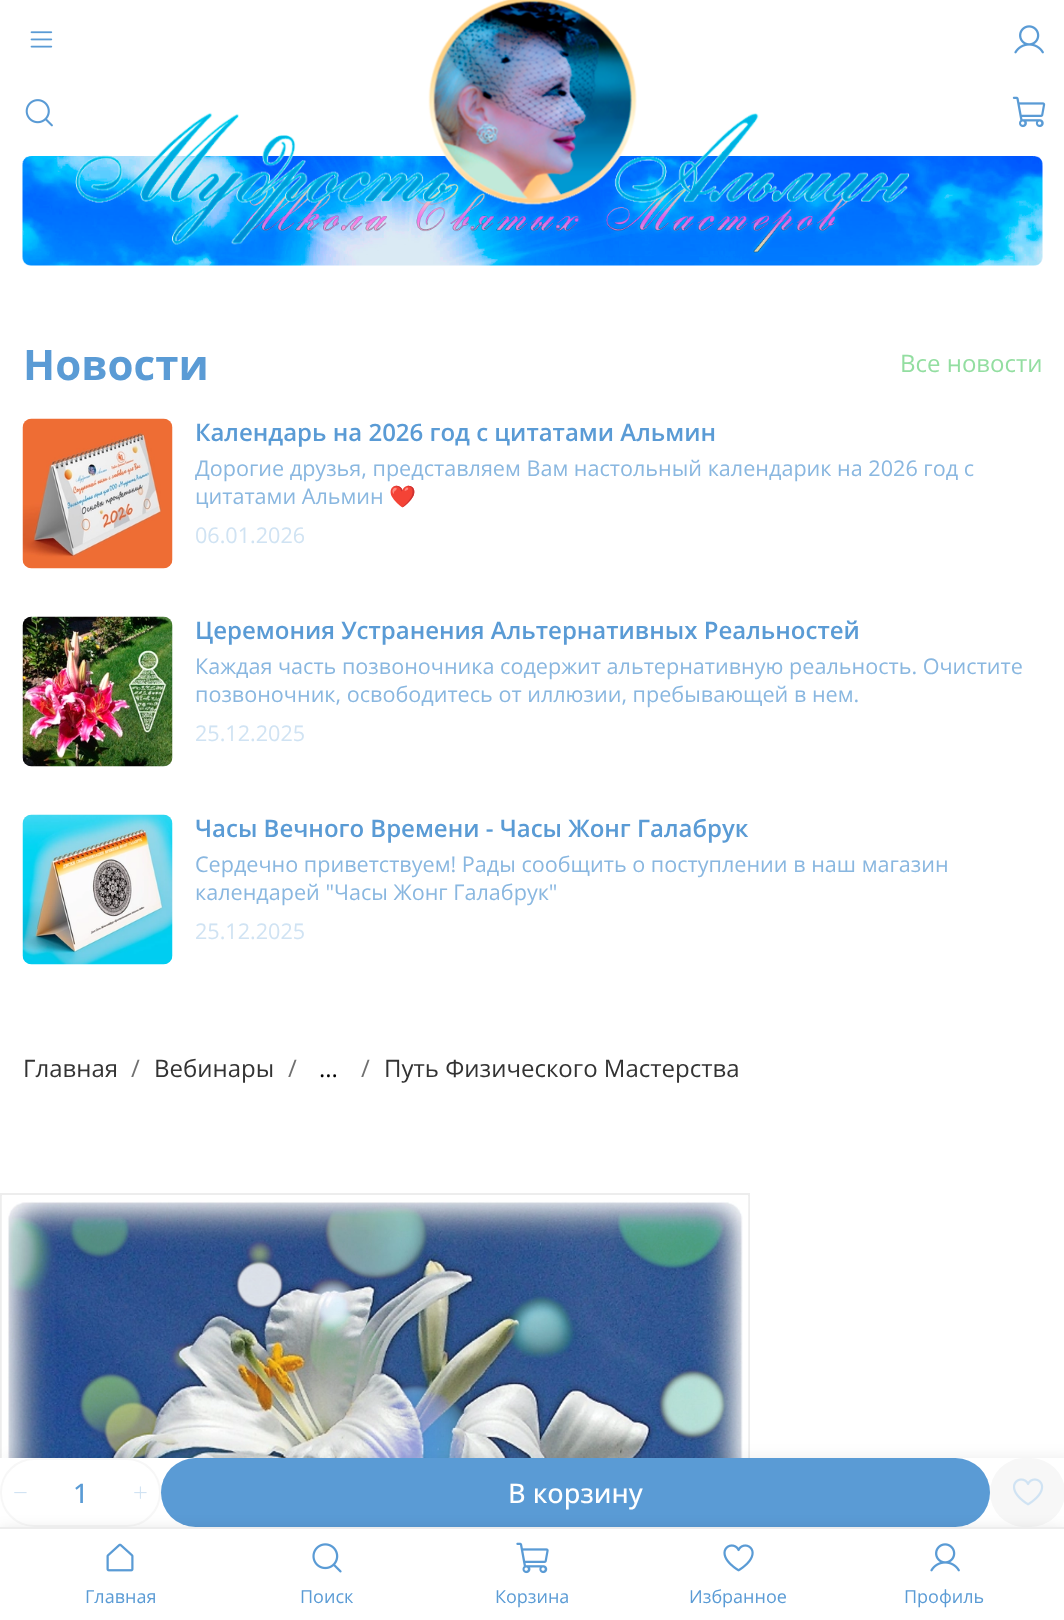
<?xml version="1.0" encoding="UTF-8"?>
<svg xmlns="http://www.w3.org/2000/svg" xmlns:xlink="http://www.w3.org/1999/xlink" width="1064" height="1620">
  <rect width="100%" height="100%" fill="#ffffff" />
  <image x="30" y="31" width="23" height="17" xlink:href="image1.png" />
  <image x="25" y="99" width="28" height="28" xlink:href="image2.png" />
  <image x="22" y="156" width="1021" height="110" xlink:href="image6.png" />
  <image x="75" y="0" width="835" height="245" xlink:href="image3.png" />
  <image x="1014" y="25" width="30" height="29" xlink:href="image4.png" />
  <image x="1012" y="96" width="34" height="32" xlink:href="image5.png" />
  <image x="22" y="418" width="151" height="151" xlink:href="image7.png" />
  <image x="22" y="616" width="151" height="151" xlink:href="image8.png" />
  <image x="22" y="814" width="151" height="151" xlink:href="image9.png" />
  <rect x="1" y="1194" width="748" height="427" fill="none" stroke="#ededed" stroke-width="2" />
  <image x="1" y="1196" width="748" height="262" xlink:href="image10.png" />
  <rect x="6" y="1458" width="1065" height="69" fill="#000000" fill-opacity="0.08" filter="blur(7.5px)" />
  <rect y="1458" width="1064" height="69" fill="#ffffff" />
  <rect x="1" y="1459" width="159" height="67" rx="33.5" fill="none" stroke="#f7f7f7" stroke-width="2" />
  <image x="14" y="1492" width="13" height="2" xlink:href="image11.png" />
  <image x="134" y="1486" width="13" height="13" xlink:href="image12.png" />
  <rect x="161" y="1458" width="829" height="69" rx="34.5" fill="#5a9bd5" />
  <rect x="990" y="1458" width="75" height="69" rx="34.5" fill="#f7f7f7" />
  <image x="1013" y="1478" width="31" height="28" xlink:href="image13.png" />
  <rect y="1530" width="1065" height="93" fill="#000000" fill-opacity="0.12" filter="blur(7.5px)" />
  <rect y="1529" width="1064" height="91" fill="#ffffff" />
  <rect y="1527" width="1064" height="2" fill="#ededed" />
  <image x="106" y="1543" width="28" height="29" xlink:href="image14.png" />
  <image x="312" y="1543" width="30" height="30" xlink:href="image15.png" />
  <image x="516" y="1542" width="33" height="32" xlink:href="image16.png" />
  <image x="723" y="1544" width="31" height="28" xlink:href="image17.png" />
  <image x="930" y="1543" width="30" height="29" xlink:href="image4.png" />
  <text x="23" y="380" style="font-family: Open Sans; font-size: 42px; font-weight: bold; fill: #5a9bd5">Новости</text>
  <text x="900" y="372" style="font-family: Open Sans; font-size: 24px; fill: #93dea1">Все новости</text>
  <text x="195" y="441" style="font-family: Open Sans; font-size: 24px; font-weight: 600; fill: #5a9bd5">Календарь на 2026 год с цитатами Альмин</text>
  <text x="195" y="476" style="font-family: Open Sans; font-size: 21.6px; fill: #89b7e0">Дорогие друзья, представляем Вам настольный календарик на 2026 год с</text>
  <text x="195" y="504" style="font-family: Open Sans; font-size: 21.6px; fill: #89b7e0">цитатами Альмин</text>
  <text x="389" y="504" style="font-family: Noto Color Emoji; font-size: 21.6px; fill: #89b7e0">❤️</text>
  <text x="195" y="543" style="font-family: Open Sans; font-size: 21.6px; fill: #d0e3f3">06.01.2026</text>
  <text x="195" y="639" style="font-family: Open Sans; font-size: 24px; font-weight: 600; fill: #5a9bd5">Церемония Устранения Альтернативных Реальностей</text>
  <text x="195" y="674" style="font-family: Open Sans; font-size: 21.6px; fill: #89b7e0">Каждая часть позвоночника содержит альтернативную реальность. Очистите</text>
  <text x="195" y="702" style="font-family: Open Sans; font-size: 21.6px; fill: #89b7e0">позвоночник, освободитесь от иллюзии, пребывающей в нем.</text>
  <text x="195" y="741" style="font-family: Open Sans; font-size: 21.6px; fill: #d0e3f3">25.12.2025</text>
  <text x="195" y="837" style="font-family: Open Sans; font-size: 24px; font-weight: 600; fill: #5a9bd5">Часы Вечного Времени - Часы Жонг Галабрук</text>
  <text x="195" y="872" style="font-family: Open Sans; font-size: 21.6px; fill: #89b7e0">Сердечно приветствуем! Рады сообщить о поступлении в наш магазин</text>
  <text x="195" y="900" style="font-family: Open Sans; font-size: 21.6px; fill: #89b7e0">календарей "Часы Жонг Галабрук"</text>
  <text x="195" y="939" style="font-family: Open Sans; font-size: 21.6px; fill: #d0e3f3">25.12.2025</text>
  <text x="23" y="1077" style="font-family: Open Sans; font-size: 24px; fill: #333333">Главная</text>
  <text x="131" y="1077" style="font-family: Open Sans; font-size: 24px; fill: #707070">/</text>
  <text x="154" y="1077" style="font-family: Open Sans; font-size: 24px; fill: #333333">Вебинары</text>
  <text x="288" y="1077" style="font-family: Open Sans; font-size: 24px; fill: #707070">/</text>
  <text x="319" y="1077" style="font-family: Open Sans; font-size: 24px; fill: #000000">...</text>
  <text x="361" y="1077" style="font-family: Open Sans; font-size: 24px; fill: #707070">/</text>
  <text x="384" y="1077" style="font-family: Open Sans; font-size: 24px; fill: #333333">Путь Физического Мастерства</text>
  <text x="73" y="1503" style="font-family: Open Sans; font-size: 27px; font-weight: 500; fill: #5a9bd5">1</text>
  <text x="508" y="1503" style="font-family: Open Sans; font-size: 27px; font-weight: 500; fill: #ffffff">В корзину</text>
  <text x="85" y="1603" style="font-family: Open Sans; font-size: 18px; fill: #5a9bd5">Главная</text>
  <text x="300" y="1603" style="font-family: Open Sans; font-size: 18px; fill: #5a9bd5">Поиск</text>
  <text x="495" y="1603" style="font-family: Open Sans; font-size: 18px; fill: #5a9bd5">Корзина</text>
  <text x="689" y="1603" style="font-family: Open Sans; font-size: 18px; fill: #5a9bd5">Избранное</text>
  <text x="904" y="1603" style="font-family: Open Sans; font-size: 18px; fill: #5a9bd5">Профиль</text>
</svg>
